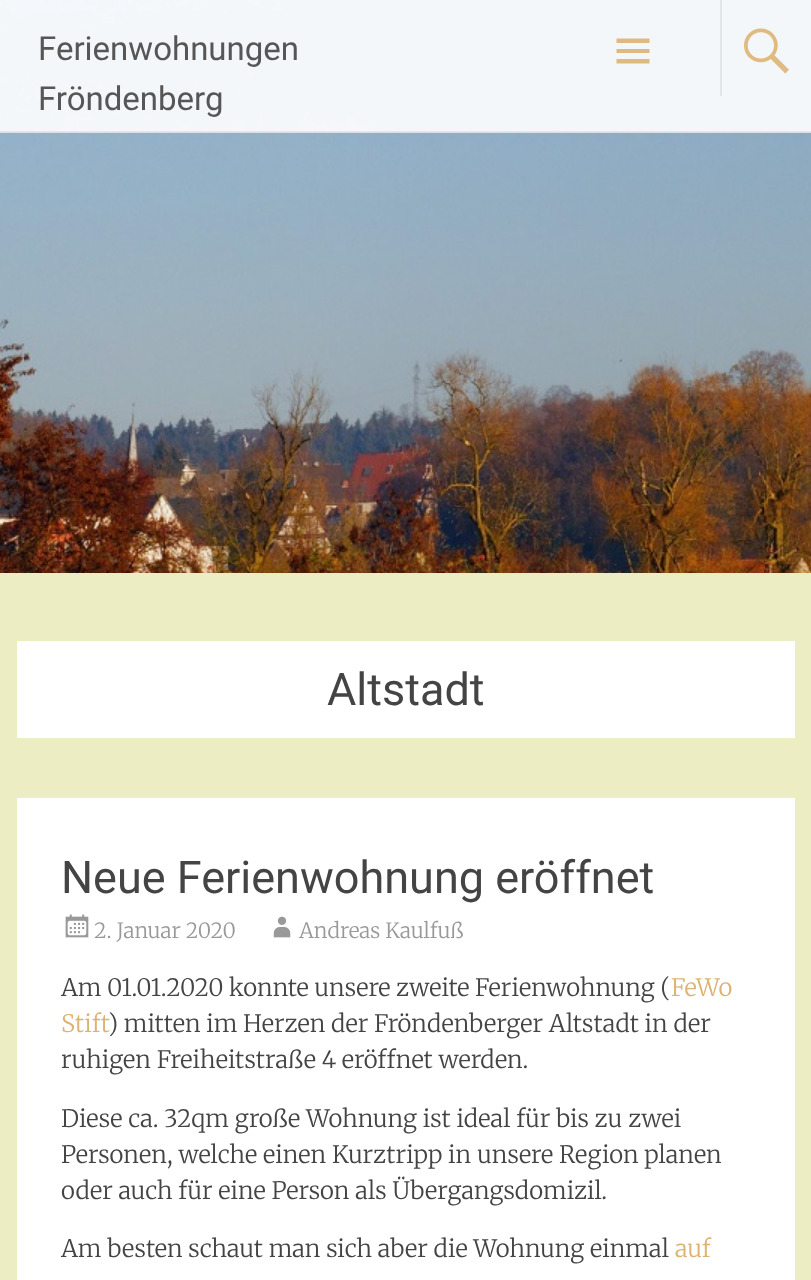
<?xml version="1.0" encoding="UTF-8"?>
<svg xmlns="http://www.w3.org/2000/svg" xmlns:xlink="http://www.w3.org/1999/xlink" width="811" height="1280">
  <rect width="100%" height="100%" fill="#ffffff" />
  <image x="0" y="0" width="811" height="573" xlink:href="image1.png" />
  <rect width="811" height="132" fill="#ffffff" fill-opacity="0.9" />
  <rect y="131" width="811" height="2" fill="#e1e4e6" fill-opacity="0.9" />
  <path d="M 616.5 63.5 v -4.5 h 33 v 4.5 z m 0 -25 h 33 v 4.5 h -33 z m 0 14.5 v -4 h 33 v 4 z" fill="#dfba80" />
  <rect x="720" width="2" height="96" fill="#e3e6e8" />
  <image x="744" y="28" width="45" height="46" xlink:href="image2.png" />
  <rect y="573" width="811" height="707" fill="#ededc4" />
  <rect x="17" y="641" width="778" height="97" fill="#ffffff" />
  <rect x="17" y="798" width="778" height="482" fill="#ffffff" />
  <image x="65" y="914" width="24" height="24" xlink:href="image3.png" />
  <image x="273" y="916" width="18" height="22" xlink:href="image4.png" />
  <text x="38" y="60" style="font-family: Roboto; font-size: 33px; fill: #565656">Ferienwohnungen</text>
  <text x="38" y="110" style="font-family: Roboto; font-size: 33px; fill: #565656">Fröndenberg</text>
  <text x="327" y="705" style="font-family: Roboto; font-size: 45px; fill: #444444">Altstadt</text>
  <text x="61" y="893" style="font-family: Roboto; font-size: 45px; fill: #444444">Neue Ferienwohnung eröffnet</text>
  <text x="94" y="938" style="font-family: Merriweather; font-size: 21px; font-weight: 300; fill: #999999">2. Januar 2020</text>
  <text x="299" y="938" style="font-family: Merriweather; font-size: 21px; font-weight: 300; fill: #999999">Andreas Kaulfuß</text>
  <text x="61" y="996" word-spacing="-0.25" style="font-family: Merriweather; font-size: 24px; font-weight: 300; fill: #444444">Am 01.01.2020 konnte unsere zweite Ferienwohnung (</text>
  <text x="671" y="996" style="font-family: Merriweather; font-size: 24px; font-weight: 300; fill: #ddb373">FeWo</text>
  <text x="61" y="1032" style="font-family: Merriweather; font-size: 24px; font-weight: 300; fill: #ddb373">Stift</text>
  <text x="108" y="1032" style="font-family: Merriweather; font-size: 24px; font-weight: 300; fill: #444444">) mitten im Herzen der Fröndenberger Altstadt in der</text>
  <text x="61" y="1068" style="font-family: Merriweather; font-size: 24px; font-weight: 300; fill: #444444">ruhigen Freiheitstraße 4 eröffnet werden.</text>
  <text x="61" y="1127" style="font-family: Merriweather; font-size: 24px; font-weight: 300; fill: #444444">Diese ca. 32qm große Wohnung ist ideal für bis zu zwei</text>
  <text x="61" y="1163" style="font-family: Merriweather; font-size: 24px; font-weight: 300; fill: #444444">Personen, welche einen Kurztripp in unsere Region planen</text>
  <text x="61" y="1199" style="font-family: Merriweather; font-size: 24px; font-weight: 300; fill: #444444">oder auch für eine Person als Übergangsdomizil.</text>
  <text x="61" y="1257" style="font-family: Merriweather; font-size: 24px; font-weight: 300; fill: #444444">Am besten schaut man sich aber die Wohnung einmal</text>
  <text x="675" y="1257" style="font-family: Merriweather; font-size: 24px; font-weight: 300; fill: #ddb373">auf</text>
</svg>
